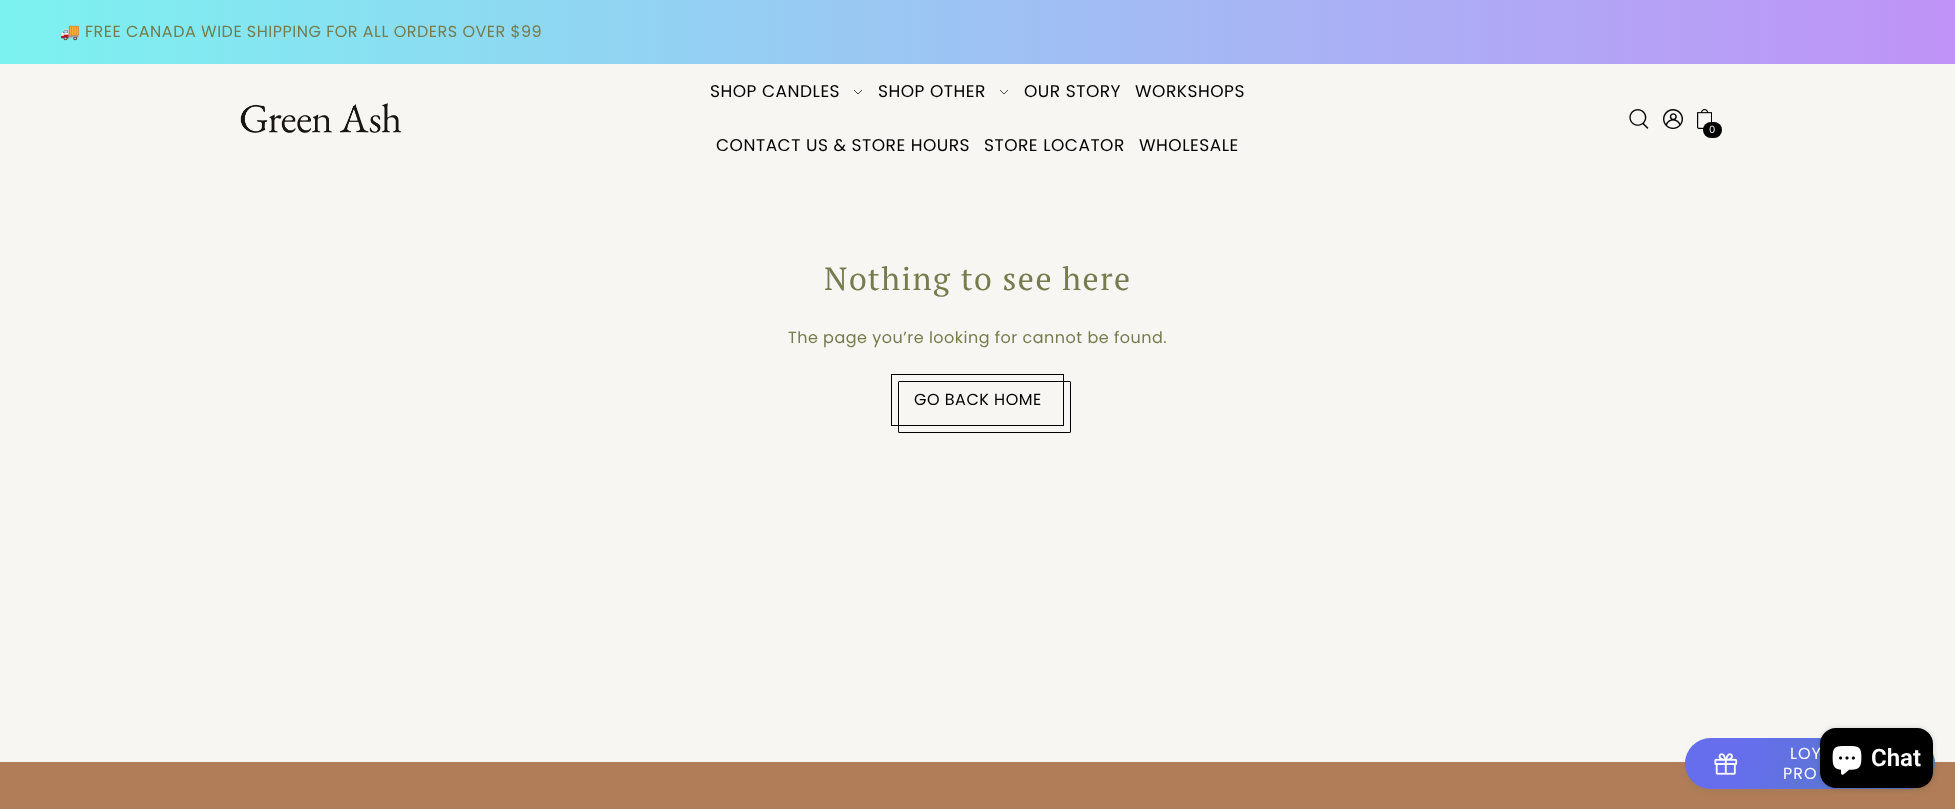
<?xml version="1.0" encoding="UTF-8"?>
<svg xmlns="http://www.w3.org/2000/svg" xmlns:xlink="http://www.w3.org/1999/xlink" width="1955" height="809">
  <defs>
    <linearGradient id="g1" gradientUnits="userSpaceOnUse" x1="0" y1="32" x2="1955" y2="32"><stop offset="0" stop-color="#7cf2f0" /><stop offset="1" stop-color="#bf93f7" /></linearGradient>
    <clipPath id="clip1"><rect x="852" y="90" width="12" height="4" /></clipPath>
    <clipPath id="clip2"><rect x="998" y="90" width="12" height="4" /></clipPath>
    <linearGradient id="g2" gradientUnits="userSpaceOnUse" x1="1691" y1="721" x2="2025" y2="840"><stop offset="0.17" stop-color="#666eed" /><stop offset="1" stop-color="#46859c" /></linearGradient>
  </defs>
  <rect width="100%" height="100%" fill="#f7f6f3" />
  <rect width="1955" height="64" fill="url(#g1)" />
  <image x="240" y="103" width="162" height="30" xlink:href="image1.png" />
  <g clip-path="url(#clip1)">
    <path d="M 854 90 l 4 4 l 4 -4" fill="none" stroke="#000000" stroke-width="0.7" stroke-linecap="round" stroke-linejoin="round" />
  </g>
  <g clip-path="url(#clip2)">
    <path d="M 1000 90 l 4 4 l 4 -4" fill="none" stroke="#000000" stroke-width="0.7" stroke-linecap="round" stroke-linejoin="round" />
  </g>
  <image x="1629" y="109" width="20" height="20" xlink:href="image2.png" />
  <image x="1663" y="109" width="20" height="20" xlink:href="image3.png" />
  <image x="1697" y="109" width="15" height="20" xlink:href="image4.png" />
  <rect x="1703" y="122" width="19" height="16" rx="8" fill="#000000" />
  <rect x="898.5" y="381.5" width="172" height="51" rx="0.5" fill="none" stroke="#000000" />
  <rect x="891.5" y="374.5" width="172" height="51" fill="none" stroke="#000000" />
  <rect y="762" width="1955" height="47" fill="#b07d58" />
  <rect x="1687" y="744" width="246" height="47" rx="23.5" fill="#444444" fill-opacity="0.08" filter="blur(4px)" />
  <rect x="1685" y="738" width="250" height="51" rx="25.5" fill="url(#g2)" />
  <image x="1714" y="753" width="24" height="22" xlink:href="image5.png" />
  <rect x="1820" y="728" width="113" height="60" rx="16" fill="#000000" fill-opacity="0.15" filter="blur(2.5px)" />
  <text x="60" y="37" style="font-family: Noto Color Emoji; font-size: 16px; letter-spacing: 0.5px; fill: #757c4e">🚚</text>
  <text x="85" y="37" style="font-family: Poppins; font-size: 16px; letter-spacing: 0.5px; fill: #757c4e">FREE CANADA WIDE SHIPPING FOR ALL ORDERS OVER $99</text>
  <text x="710" y="97" style="font-family: Poppins; font-size: 17px; letter-spacing: 0.5px; fill: #000000">SHOP CANDLES</text>
  <text x="878" y="97" style="font-family: Poppins; font-size: 17px; letter-spacing: 0.5px; fill: #000000">SHOP OTHER</text>
  <text x="1024" y="97" style="font-family: Poppins; font-size: 17px; letter-spacing: 0.5px; fill: #000000">OUR STORY</text>
  <text x="1135" y="97" style="font-family: Poppins; font-size: 17px; letter-spacing: 0.5px; fill: #000000">WORKSHOPS</text>
  <text x="716" y="151" style="font-family: Poppins; font-size: 17px; letter-spacing: 0.5px; fill: #000000">CONTACT US &amp; STORE HOURS</text>
  <text x="984" y="151" style="font-family: Poppins; font-size: 17px; letter-spacing: 0.5px; fill: #000000">STORE LOCATOR</text>
  <text x="1139" y="151" style="font-family: Poppins; font-size: 17px; letter-spacing: 0.5px; fill: #000000">WHOLESALE</text>
  <text x="1709" y="133" style="font-family: Poppins; font-size: 10px; letter-spacing: 0.5px; fill: #f7f6f3">0</text>
  <text x="824" y="290" style="font-family: PT Serif; font-size: 32px; letter-spacing: 1.5px; fill: #757c4e">Nothing to see here</text>
  <text x="788" y="343" style="font-family: Poppins; font-size: 16px; letter-spacing: 0.5px; fill: #757c4e">The page you’re looking for cannot be found.</text>
  <text x="914" y="405" style="font-family: Poppins; font-size: 16px; letter-spacing: 0.5px; fill: #000000">GO BACK HOME</text>
  <text x="1790" y="759" style="font-family: Poppins; font-size: 16px; letter-spacing: 1px; fill: #ffffff">LOY</text>
  <text x="1783" y="779" style="font-family: Poppins; font-size: 16px; letter-spacing: 1px; fill: #ffffff">PRO</text>
  <rect x="1820" y="728" width="113" height="60" rx="16" fill="#000000" />
  <image x="1832" y="746" width="30" height="29" xlink:href="image6.png" />
  <text x="1871" y="766" style="font-family: Roboto; font-size: 24px; font-weight: 600; fill: #ffffff">Chat</text>
</svg>
